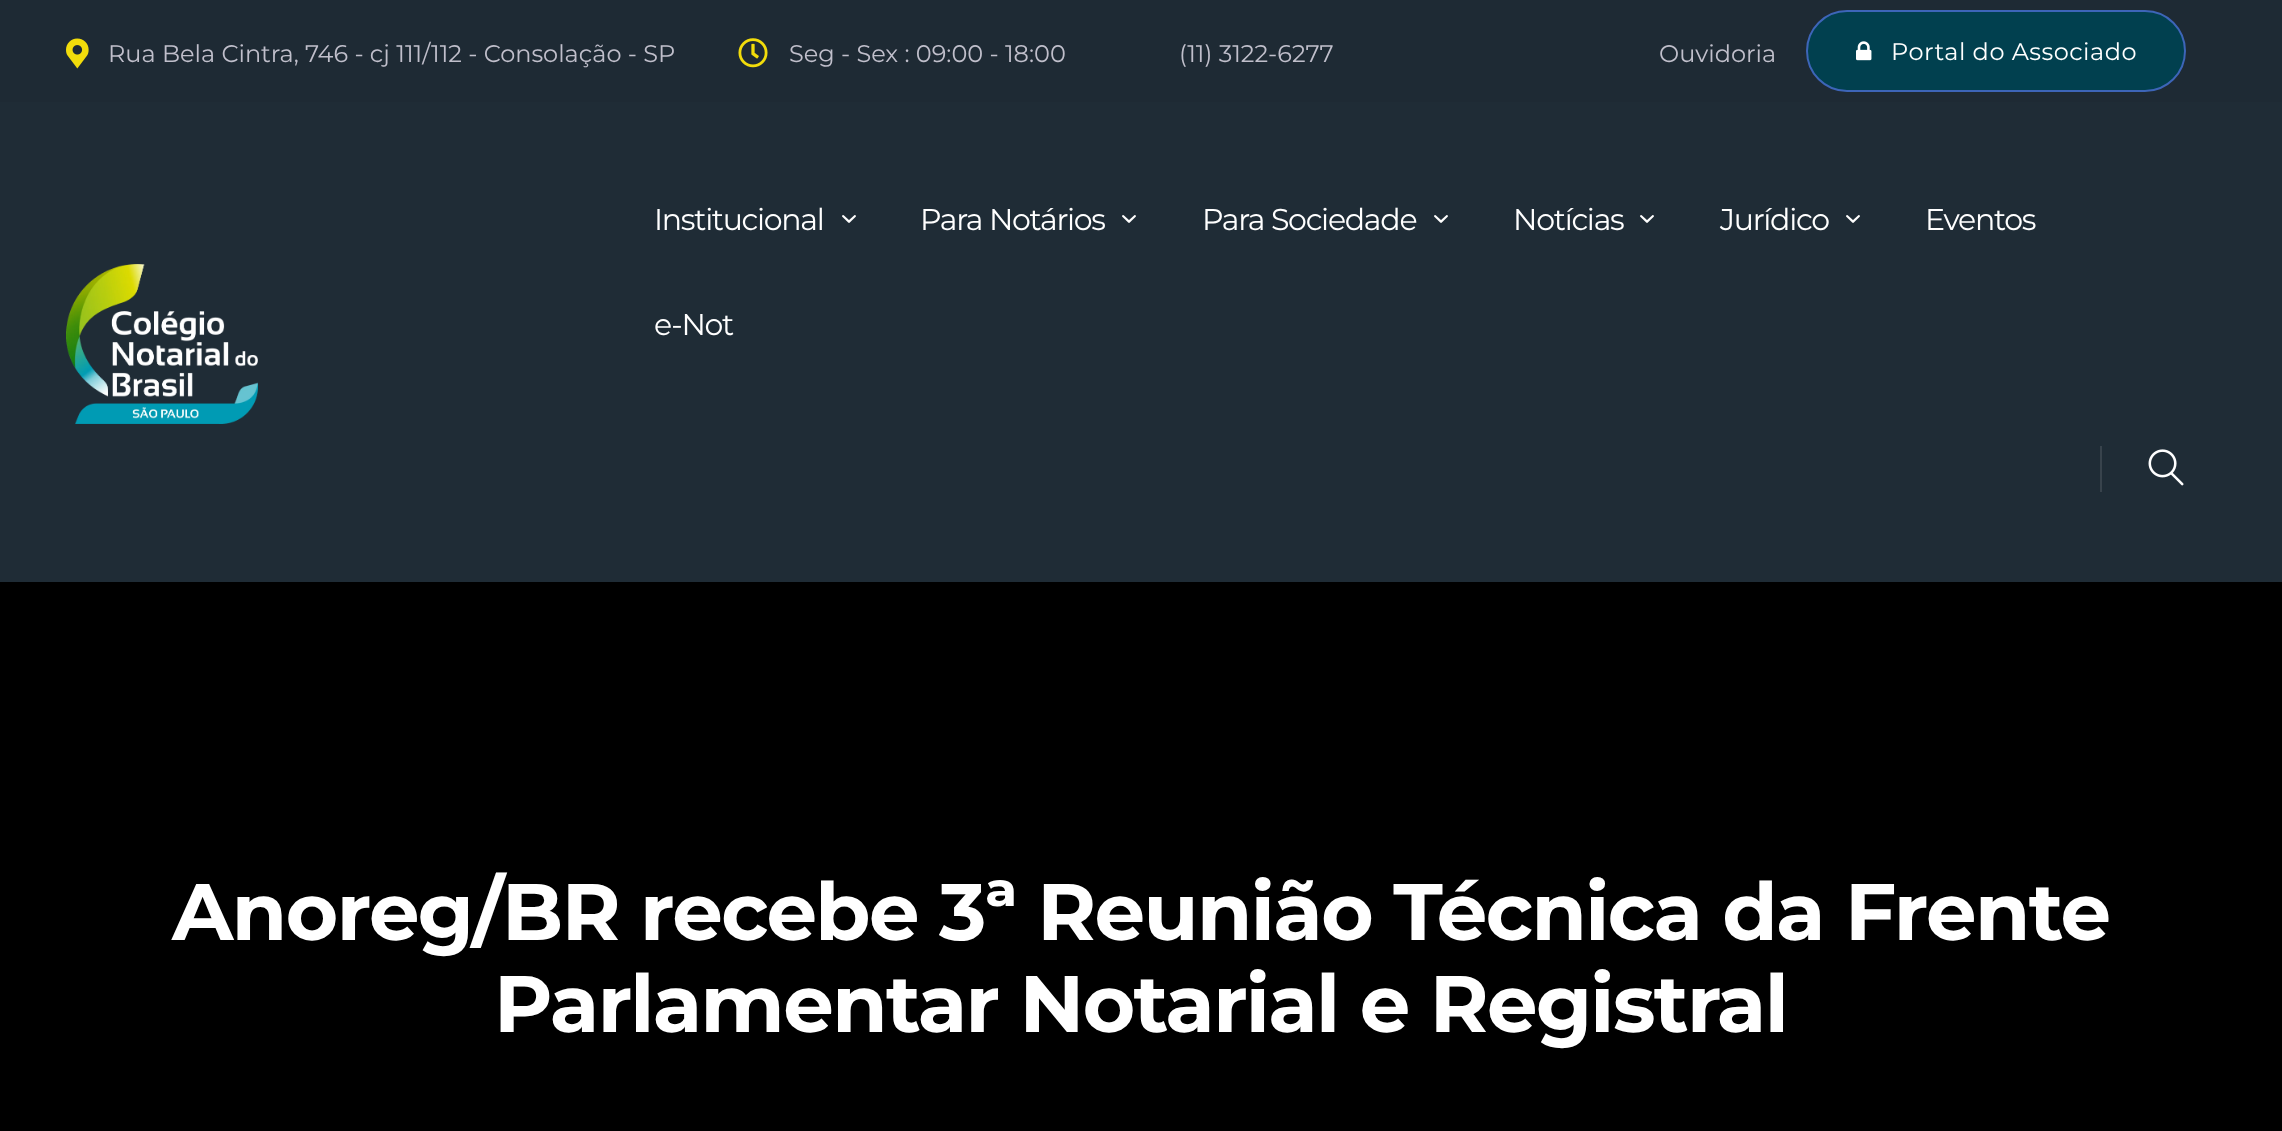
<?xml version="1.0" encoding="UTF-8"?>
<svg xmlns="http://www.w3.org/2000/svg" xmlns:xlink="http://www.w3.org/1999/xlink" width="2282" height="1131">
  <rect width="100%" height="100%" fill="#000000" />
  <rect width="2282" height="102" fill="#1e2a34" />
  <image x="66" y="38" width="23" height="31" xlink:href="image1.png" />
  <image x="738" y="38" width="30" height="30" xlink:href="image2.png" />
  <rect x="1807" y="11" width="378" height="80" rx="40" fill="#01404f" stroke="#3d65b8" stroke-width="2" />
  <image x="1856" y="41" width="16" height="20" xlink:href="image3.png" />
  <rect y="102" width="2282" height="480" fill="#1f2c36" />
  <image x="66" y="264" width="192" height="160" xlink:href="image4.png" />
  <image x="842" y="215" width="14" height="8" xlink:href="image5.png" />
  <image x="1122" y="215" width="14" height="8" xlink:href="image5.png" />
  <image x="1434" y="215" width="14" height="8" xlink:href="image5.png" />
  <image x="1640" y="215" width="14" height="8" xlink:href="image5.png" />
  <image x="1846" y="215" width="14" height="8" xlink:href="image5.png" />
  <rect x="2100" y="446" width="2" height="46" fill="#38434c" />
  <image x="2148" y="449" width="36" height="37" xlink:href="image6.png" />
  <text x="108" y="62" style="font-family: Montserrat; font-size: 24px; fill: #c0bfcb">Rua Bela Cintra, 746 - cj 111/112 - Consolação - SP</text>
  <text x="789" y="62" style="font-family: Montserrat; font-size: 24px; fill: #c0bfcb">Seg - Sex : 09:00 - 18:00</text>
  <text x="1179" y="62" style="font-family: Montserrat; font-size: 24px; fill: #c0bfcb">(11) 3122-6277</text>
  <text x="1659" y="62" style="font-family: Montserrat; font-size: 24px; fill: #c0bfcb">Ouvidoria</text>
  <text x="1891" y="60" style="font-family: Montserrat; font-size: 24px; letter-spacing: 0.5px; fill: #ffffff">Portal do Associado</text>
  <text x="654" y="230" style="font-family: Montserrat; font-size: 30px; letter-spacing: -1.25px; fill: #ffffff">Institucional</text>
  <text x="920" y="230" style="font-family: Montserrat; font-size: 30px; letter-spacing: -1.25px; fill: #ffffff">Para Notários</text>
  <text x="1202" y="230" style="font-family: Montserrat; font-size: 30px; letter-spacing: -1.25px; fill: #ffffff">Para Sociedade</text>
  <text x="1513" y="230" style="font-family: Montserrat; font-size: 30px; letter-spacing: -1.25px; fill: #ffffff">Notícias</text>
  <text x="1720" y="230" style="font-family: Montserrat; font-size: 30px; letter-spacing: -1.25px; fill: #ffffff">Jurídico</text>
  <text x="1925" y="230" style="font-family: Montserrat; font-size: 30px; letter-spacing: -1.25px; fill: #ffffff">Eventos</text>
  <text x="654" y="335" style="font-family: Montserrat; font-size: 30px; letter-spacing: -1.25px; fill: #ffffff">e-Not</text>
  <text x="172" y="940" style="font-family: Montserrat; font-size: 80.1px; font-weight: bold; letter-spacing: -1.6px; fill: #ffffff">Anoreg/BR recebe 3ª Reunião Técnica da Frente</text>
  <text x="494" y="1032" style="font-family: Montserrat; font-size: 80.1px; font-weight: bold; letter-spacing: -1.6px; fill: #ffffff">Parlamentar Notarial e Registral</text>
</svg>
